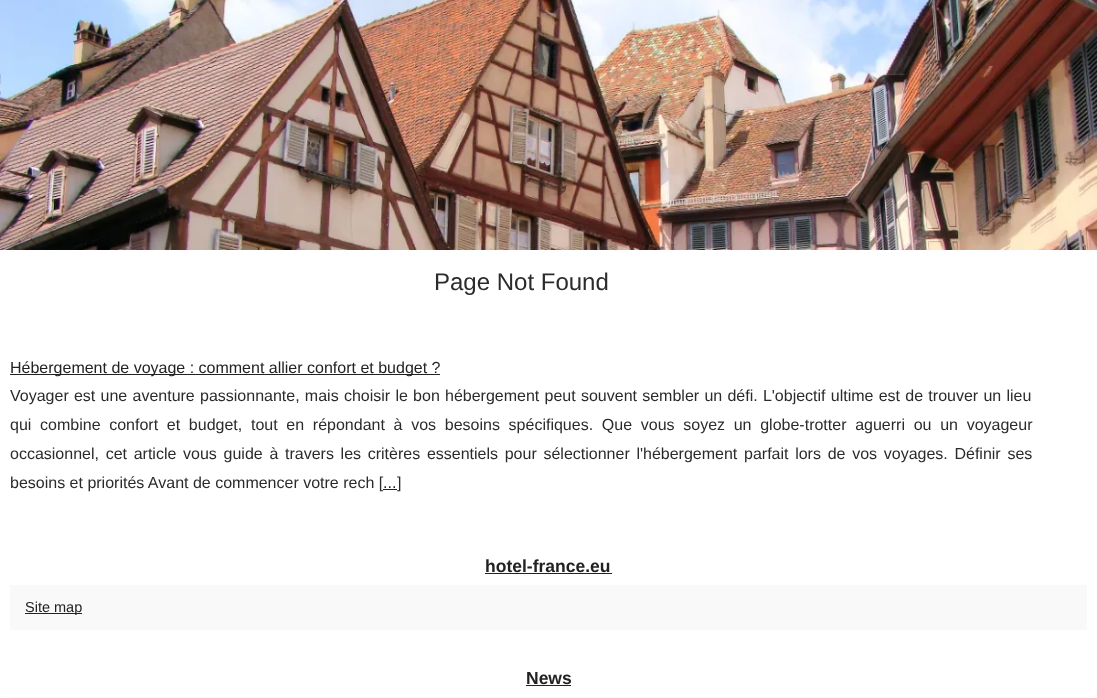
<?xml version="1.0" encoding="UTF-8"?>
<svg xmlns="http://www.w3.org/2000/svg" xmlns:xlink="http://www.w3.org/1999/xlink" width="1097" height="698">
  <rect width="100%" height="100%" fill="#ffffff" />
  <image x="0" y="0" width="1097" height="250" xlink:href="image1.png" />
  <rect x="10" y="374" width="430" height="1" fill="#222222" />
  <rect x="485" y="573" width="127" height="1" fill="#222222" />
  <rect x="10" y="585" width="1077" height="45" fill="#f9f9f9" />
  <rect x="25" y="613" width="57" height="1" fill="#222222" />
  <rect x="526" y="685" width="45" height="1" fill="#222222" />
  <rect x="10" y="697" width="1077" height="1" fill="#f9f9f9" />
  <text x="434" y="290" style="font-family: Liberation Sans; font-size: 24px; fill: #2b2b2b">Page Not Found</text>
  <text x="10" y="373" style="font-family: Liberation Sans; font-size: 16px; fill: #222222">Hébergement de voyage : comment allier confort et budget ?</text>
  <text x="10" y="401" word-spacing="0.8" style="font-family: Liberation Sans; font-size: 16px; fill: #2b2b2b">Voyager est une aventure passionnante, mais choisir le bon hébergement peut souvent sembler un défi. L'objectif ultime est de trouver un lieu</text>
  <text x="10" y="430" word-spacing="4.25" style="font-family: Liberation Sans; font-size: 16px; fill: #2b2b2b">qui combine confort et budget, tout en répondant à vos besoins spécifiques. Que vous soyez un globe-trotter aguerri ou un voyageur</text>
  <text x="10" y="459" word-spacing="2.25" style="font-family: Liberation Sans; font-size: 16px; fill: #2b2b2b">occasionnel, cet article vous guide à travers les critères essentiels pour sélectionner l'hébergement parfait lors de vos voyages. Définir ses</text>
  <text x="10" y="488" style="font-family: Liberation Sans; font-size: 16px; fill: #2b2b2b">besoins et priorités Avant de commencer votre rech [</text>
  <text x="383" y="488" style="font-family: Liberation Sans; font-size: 16px; fill: #222222">...</text>
  <rect x="383" y="489" width="14" height="1" fill="#222222" />
  <text x="397" y="488" style="font-family: Liberation Sans; font-size: 16px; fill: #2b2b2b">]</text>
  <text x="485" y="572" style="font-family: Liberation Sans; font-size: 17.5px; font-weight: bold; fill: #222222">hotel-france.eu</text>
  <text x="25" y="612" style="font-family: Liberation Sans; font-size: 14.5px; fill: #222222">Site map</text>
  <text x="526" y="684" style="font-family: Liberation Sans; font-size: 17.5px; font-weight: bold; fill: #222222">News</text>
</svg>
